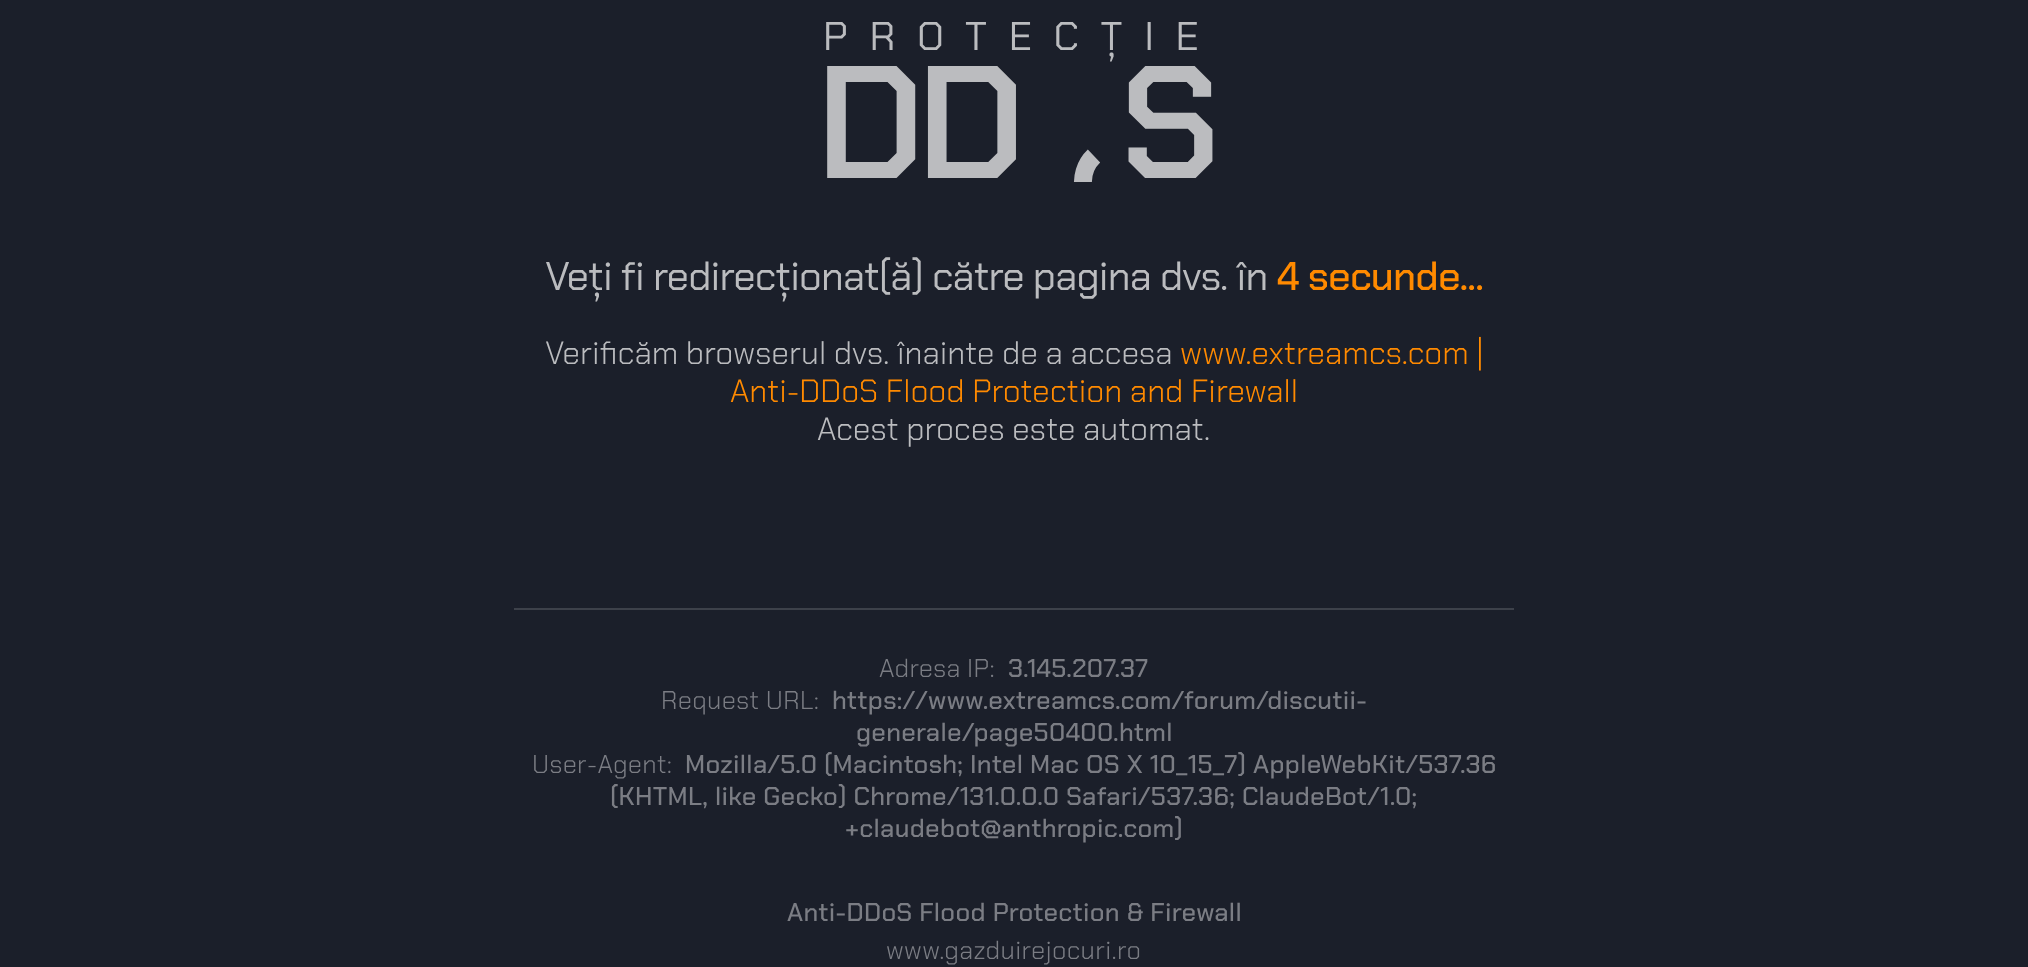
<?xml version="1.0" encoding="UTF-8"?>
<svg xmlns="http://www.w3.org/2000/svg" xmlns:xlink="http://www.w3.org/1999/xlink" width="2028" height="967">
  <defs>
    <clipPath id="clip1"><rect x="1020" y="82" width="100" height="100" /></clipPath>
  </defs>
  <rect width="100%" height="100%" fill="#1b1f2a" />
  <g clip-path="url(#clip1)">
    <path d="M 1146 156 c 7 6.5 11 16.5 11 26 c 0 44.5 -64.5 50.5 -73.5 7.5 c -2 -12.5 1.5 -25 10.5 -33.5" fill="none" stroke="#bbbcbf" stroke-width="18" />
  </g>
  <rect x="514" y="608" width="1000" height="2" fill="#3d414a" />
  <text x="823" y="50" style="font-family: Chakra Petch; font-size: 40px; letter-spacing: 21.5px; fill: #bbbcbf">PROTECȚIE</text>
  <text x="816" y="178" style="font-family: Chakra Petch; font-size: 160px; font-weight: 600; letter-spacing: -8px; fill: #bbbcbf" xml:space="preserve">DD   S</text>
  <text x="545" y="290" style="font-family: Chakra Petch; font-size: 40px; letter-spacing: -0.8px; fill: #bbbcbf">Veți fi redirecționat(ă) către pagina dvs. în</text>
  <text x="1277" y="290" style="font-family: Chakra Petch; font-size: 40px; font-weight: 500; letter-spacing: -0.8px; fill: #ff8a00">4 secunde...</text>
  <text x="545" y="364" style="font-family: Chakra Petch; font-size: 32px; font-weight: 300; fill: #bbbcbf">Verificăm browserul dvs. înainte de a accesa</text>
  <text x="1180" y="364" style="font-family: Chakra Petch; font-size: 32px; font-weight: 300; fill: #ff8a00">www.extreamcs.com |</text>
  <text x="730" y="402" style="font-family: Chakra Petch; font-size: 32px; font-weight: 300; fill: #ff8a00">Anti-DDoS Flood Protection and Firewall</text>
  <text x="817" y="440" style="font-family: Chakra Petch; font-size: 32px; font-weight: 300; fill: #bbbcbf">Acest proces este automat.</text>
  <text x="879" y="677" style="font-family: Chakra Petch; font-size: 25.6px; font-weight: 300; letter-spacing: 0.32px; fill: #7b7d84">Adresa IP:</text>
  <text x="1008" y="677" style="font-family: Chakra Petch; font-size: 25.6px; font-weight: 500; letter-spacing: 0.32px; fill: #7b7d84">3.145.207.37</text>
  <text x="661" y="709" style="font-family: Chakra Petch; font-size: 25.6px; font-weight: 300; letter-spacing: 0.32px; fill: #7b7d84">Request URL:</text>
  <text x="832" y="709" style="font-family: Chakra Petch; font-size: 25.6px; font-weight: 500; letter-spacing: 0.32px; fill: #7b7d84">https://www.extreamcs.com/forum/discutii-</text>
  <text x="856" y="741" style="font-family: Chakra Petch; font-size: 25.6px; font-weight: 500; letter-spacing: 0.32px; fill: #7b7d84">generale/page50400.html</text>
  <text x="532" y="773" style="font-family: Chakra Petch; font-size: 25.6px; font-weight: 300; letter-spacing: 0.32px; fill: #7b7d84">User-Agent:</text>
  <text x="685" y="773" style="font-family: Chakra Petch; font-size: 25.6px; font-weight: 500; letter-spacing: 0.32px; fill: #7b7d84">Mozilla/5.0 (Macintosh; Intel Mac OS X 10_15_7) AppleWebKit/537.36</text>
  <text x="610" y="805" style="font-family: Chakra Petch; font-size: 25.6px; font-weight: 500; letter-spacing: 0.32px; fill: #7b7d84">(KHTML, like Gecko) Chrome/131.0.0.0 Safari/537.36; ClaudeBot/1.0;</text>
  <text x="845" y="837" style="font-family: Chakra Petch; font-size: 25.6px; font-weight: 500; letter-spacing: 0.32px; fill: #7b7d84">+claudebot@anthropic.com)</text>
  <text x="787" y="921" style="font-family: Chakra Petch; font-size: 25.6px; font-weight: 500; letter-spacing: 0.32px; fill: #7b7d84">Anti-DDoS Flood Protection &amp; Firewall</text>
  <text x="886" y="959" style="font-family: Chakra Petch; font-size: 25.6px; font-weight: 300; letter-spacing: 0.32px; fill: #7b7d84">www.gazduirejocuri.ro</text>
</svg>
